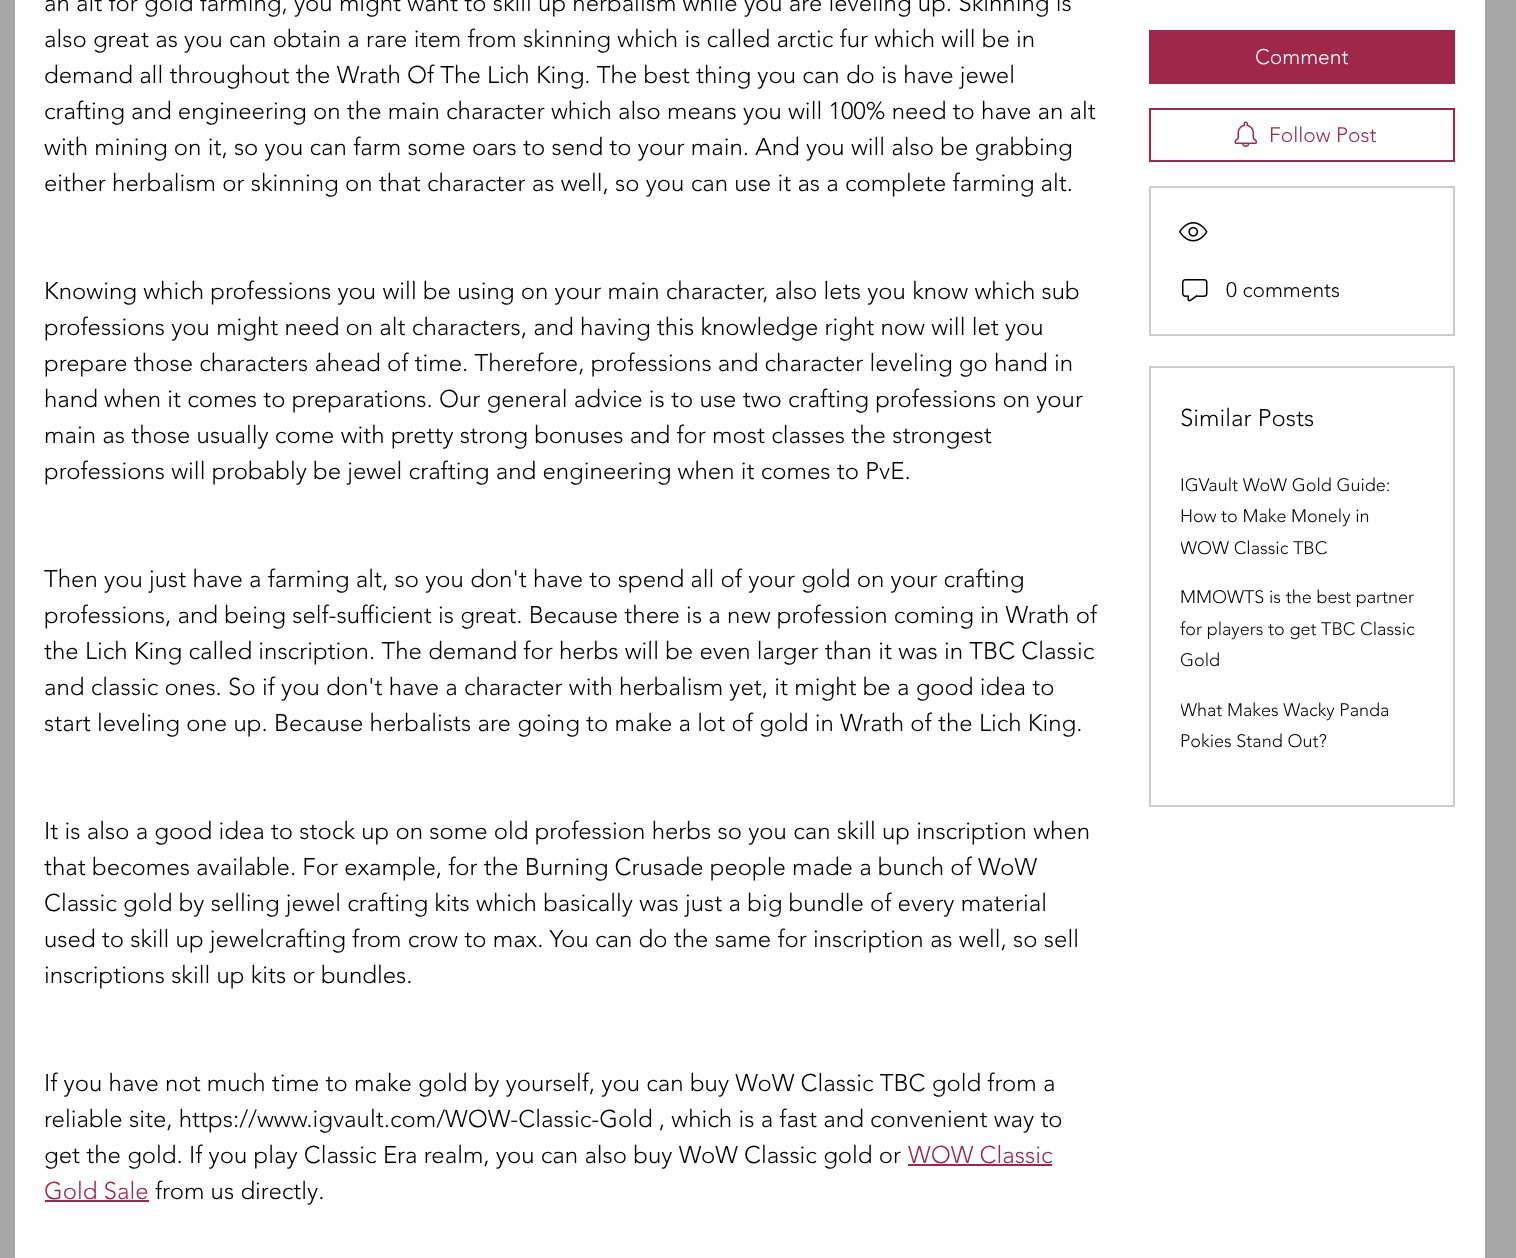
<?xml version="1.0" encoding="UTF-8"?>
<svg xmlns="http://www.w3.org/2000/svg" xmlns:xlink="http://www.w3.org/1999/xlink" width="1516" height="1258">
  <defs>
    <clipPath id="clip1"><rect x="1181" y="470" width="243" height="94" /></clipPath>
    <clipPath id="clip2"><rect x="1181" y="582" width="243" height="95" /></clipPath>
    <clipPath id="clip3"><rect x="1181" y="695" width="243" height="63" /></clipPath>
  </defs>
  <rect width="100%" height="100%" fill="#a7a7a7" />
  <rect x="15" width="1470" height="1258" fill="#ffffff" />
  <rect x="908" y="1164" width="144" height="2" fill="#9f2747" />
  <rect x="45" y="1200" width="104" height="2" fill="#9f2747" />
  <rect x="1149" y="30" width="306" height="54" fill="#9f2747" />
  <rect x="1150" y="109" width="304" height="52" fill="none" stroke="#9f2747" stroke-width="2" />
  <image x="1234" y="121" width="23" height="26" xlink:href="image1.png" />
  <rect x="1150" y="187" width="304" height="148" fill="none" stroke="#cccccc" stroke-width="2" />
  <image x="1179" y="222" width="29" height="20" xlink:href="image2.png" />
  <image x="1182" y="279" width="26" height="23" xlink:href="image3.png" />
  <rect x="1150" y="367" width="304" height="439" fill="none" stroke="#cccccc" stroke-width="2" />
  <text x="44" y="11" style="font-family: 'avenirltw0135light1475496'; font-size: 24px; font-weight: 300; fill: #000000">an alt for gold farming, you might want to skill up herbalism while you are leveling up. Skinning is</text>
  <text x="44" y="47" style="font-family: 'avenirltw0135light1475496'; font-size: 24px; font-weight: 300; fill: #000000">also great as you can obtain a rare item from skinning which is called arctic fur which will be in</text>
  <text x="44" y="83" style="font-family: 'avenirltw0135light1475496'; font-size: 24px; font-weight: 300; fill: #000000">demand all throughout the Wrath Of The Lich King. The best thing you can do is have jewel</text>
  <text x="44" y="119" style="font-family: 'avenirltw0135light1475496'; font-size: 24px; font-weight: 300; fill: #000000">crafting and engineering on the main character which also means you will 100% need to have an alt</text>
  <text x="44" y="155" style="font-family: 'avenirltw0135light1475496'; font-size: 24px; font-weight: 300; fill: #000000">with mining on it, so you can farm some oars to send to your main. And you will also be grabbing</text>
  <text x="44" y="191" style="font-family: 'avenirltw0135light1475496'; font-size: 24px; font-weight: 300; fill: #000000">either herbalism or skinning on that character as well, so you can use it as a complete farming alt.</text>
  <text x="44" y="299" style="font-family: 'avenirltw0135light1475496'; font-size: 24px; font-weight: 300; fill: #000000">Knowing which professions you will be using on your main character, also lets you know which sub</text>
  <text x="44" y="335" style="font-family: 'avenirltw0135light1475496'; font-size: 24px; font-weight: 300; fill: #000000">professions you might need on alt characters, and having this knowledge right now will let you</text>
  <text x="44" y="371" style="font-family: 'avenirltw0135light1475496'; font-size: 24px; font-weight: 300; fill: #000000">prepare those characters ahead of time. Therefore, professions and character leveling go hand in</text>
  <text x="44" y="407" style="font-family: 'avenirltw0135light1475496'; font-size: 24px; font-weight: 300; fill: #000000">hand when it comes to preparations. Our general advice is to use two crafting professions on your</text>
  <text x="44" y="443" style="font-family: 'avenirltw0135light1475496'; font-size: 24px; font-weight: 300; fill: #000000">main as those usually come with pretty strong bonuses and for most classes the strongest</text>
  <text x="44" y="479" style="font-family: 'avenirltw0135light1475496'; font-size: 24px; font-weight: 300; fill: #000000">professions will probably be jewel crafting and engineering when it comes to PvE.</text>
  <text x="44" y="587" style="font-family: 'avenirltw0135light1475496'; font-size: 24px; font-weight: 300; fill: #000000">Then you just have a farming alt, so you don't have to spend all of your gold on your crafting</text>
  <text x="44" y="623" style="font-family: 'avenirltw0135light1475496'; font-size: 24px; font-weight: 300; fill: #000000">professions, and being self-sufficient is great. Because there is a new profession coming in Wrath of</text>
  <text x="44" y="659" style="font-family: 'avenirltw0135light1475496'; font-size: 24px; font-weight: 300; fill: #000000">the Lich King called inscription. The demand for herbs will be even larger than it was in TBC Classic</text>
  <text x="44" y="695" style="font-family: 'avenirltw0135light1475496'; font-size: 24px; font-weight: 300; fill: #000000">and classic ones. So if you don't have a character with herbalism yet, it might be a good idea to</text>
  <text x="44" y="731" style="font-family: 'avenirltw0135light1475496'; font-size: 24px; font-weight: 300; fill: #000000">start leveling one up. Because herbalists are going to make a lot of gold in Wrath of the Lich King.</text>
  <text x="44" y="839" style="font-family: 'avenirltw0135light1475496'; font-size: 24px; font-weight: 300; fill: #000000">It is also a good idea to stock up on some old profession herbs so you can skill up inscription when</text>
  <text x="44" y="875" style="font-family: 'avenirltw0135light1475496'; font-size: 24px; font-weight: 300; fill: #000000">that becomes available. For example, for the Burning Crusade people made a bunch of WoW</text>
  <text x="44" y="911" style="font-family: 'avenirltw0135light1475496'; font-size: 24px; font-weight: 300; fill: #000000">Classic gold by selling jewel crafting kits which basically was just a big bundle of every material</text>
  <text x="44" y="947" style="font-family: 'avenirltw0135light1475496'; font-size: 24px; font-weight: 300; fill: #000000">used to skill up jewelcrafting from crow to max. You can do the same for inscription as well, so sell</text>
  <text x="44" y="983" style="font-family: 'avenirltw0135light1475496'; font-size: 24px; font-weight: 300; fill: #000000">inscriptions skill up kits or bundles.</text>
  <text x="44" y="1091" style="font-family: 'avenirltw0135light1475496'; font-size: 24px; font-weight: 300; fill: #000000">If you have not much time to make gold by yourself, you can buy WoW Classic TBC gold from a</text>
  <text x="44" y="1127" style="font-family: 'avenirltw0135light1475496'; font-size: 24px; font-weight: 300; fill: #000000">reliable site, https://www.igvault.com/WOW-Classic-Gold , which is a fast and convenient way to</text>
  <text x="44" y="1163" style="font-family: 'avenirltw0135light1475496'; font-size: 24px; font-weight: 300; fill: #000000">get the gold. If you play Classic Era realm, you can also buy WoW Classic gold or</text>
  <text x="908" y="1163" style="font-family: 'avenirltw0135light1475496'; font-size: 24px; font-weight: 300; fill: #9f2747">WOW Classic</text>
  <text x="44" y="1199" style="font-family: 'avenirltw0135light1475496'; font-size: 24px; font-weight: 300; fill: #9f2747">Gold Sale</text>
  <text x="155" y="1199" style="font-family: 'avenirltw0135light1475496'; font-size: 24px; font-weight: 300; fill: #000000">from us directly.</text>
  <text x="1255" y="64" style="font-family: 'avenirltw0135light1475496'; font-size: 21px; font-weight: 300; fill: #ffffff">Comment</text>
  <text x="1269" y="142" style="font-family: 'avenirltw0135light1475496'; font-size: 21px; font-weight: 300; fill: #9f2747">Follow Post</text>
  <text x="1226" y="297" style="font-family: 'avenirltw0135light1475496'; font-size: 21px; font-weight: 300; fill: #000000">0 comments</text>
  <text x="1180" y="426" style="font-family: 'avenirltw0135light1475496'; font-size: 24px; font-weight: 300; fill: #000000">Similar Posts</text>
  <text x="1180" y="491" style="font-family: 'avenirltw0135light1475496'; font-size: 18px; font-weight: 300; fill: #000000">IGVault WoW Gold Guide:</text>
  <text x="1180" y="522" style="font-family: 'avenirltw0135light1475496'; font-size: 18px; font-weight: 300; fill: #000000">How to Make Monely in</text>
  <g clip-path="url(#clip1)">
    <text x="1180" y="554" style="font-family: 'avenirltw0135light1475496'; font-size: 18px; font-weight: 300; fill: #000000">WOW Classic TBC</text>
  </g>
  <text x="1180" y="603" style="font-family: 'avenirltw0135light1475496'; font-size: 18px; font-weight: 300; fill: #000000">MMOWTS is the best partner</text>
  <text x="1180" y="635" style="font-family: 'avenirltw0135light1475496'; font-size: 18px; font-weight: 300; fill: #000000">for players to get TBC Classic</text>
  <g clip-path="url(#clip2)">
    <text x="1180" y="666" style="font-family: 'avenirltw0135light1475496'; font-size: 18px; font-weight: 300; fill: #000000">Gold</text>
  </g>
  <g clip-path="url(#clip3)">
    <text x="1180" y="716" style="font-family: 'avenirltw0135light1475496'; font-size: 18px; font-weight: 300; fill: #000000">What Makes Wacky Panda</text>
  </g>
  <text x="1180" y="747" style="font-family: 'avenirltw0135light1475496'; font-size: 18px; font-weight: 300; fill: #000000">Pokies Stand Out?</text>
</svg>
